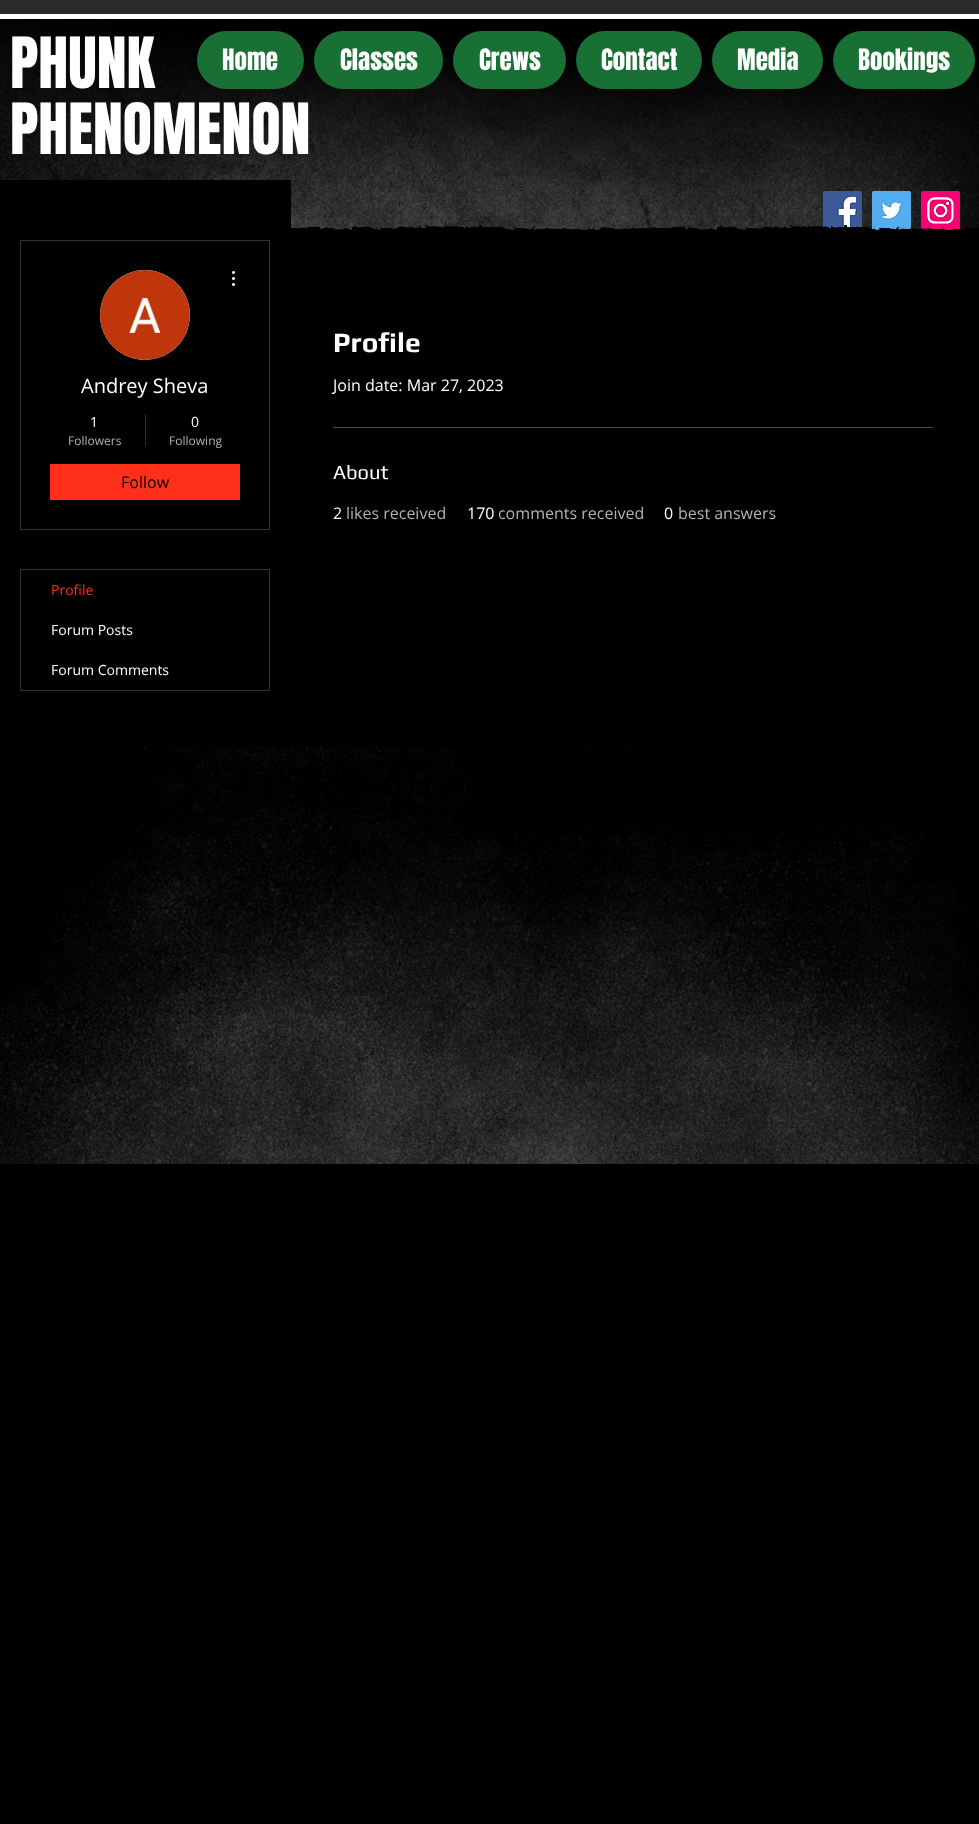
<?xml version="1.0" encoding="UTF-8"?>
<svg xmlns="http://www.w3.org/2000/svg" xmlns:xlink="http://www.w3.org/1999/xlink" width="979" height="1824">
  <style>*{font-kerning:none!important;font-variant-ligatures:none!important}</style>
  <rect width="100%" height="100%" fill="#000000" />
  <image x="0" y="19" width="979" height="1145" xlink:href="image1.png" />
  <rect width="979" height="14" fill="#2b2b2b" />
  <rect y="14" width="979" height="5" fill="#ffffff" />
  <rect x="197" y="31" width="107" height="58" rx="29" fill="#187035" />
  <rect x="314" y="31" width="129" height="58" rx="29" fill="#187035" />
  <rect x="453" y="31" width="113" height="58" rx="29" fill="#187035" />
  <rect x="576" y="31" width="126" height="58" rx="29" fill="#187035" />
  <rect x="712" y="31" width="111" height="58" rx="29" fill="#187035" />
  <rect x="833" y="31" width="142" height="58" rx="29" fill="#187035" />
  <image x="823" y="191" width="39" height="37" xlink:href="image2.png" />
  <image x="872" y="191" width="39" height="39" xlink:href="image3.png" />
  <image x="921" y="191" width="39" height="39" xlink:href="image4.png" />
  <rect y="180" width="291" height="562" fill="#000000" />
  <rect x="20.5" y="240.5" width="249" height="289" fill="none" stroke="#333333" />
  <circle cx="145" cy="315" r="45" fill="#d8d8d8" />
  <image x="100" y="270" width="90" height="90" xlink:href="image5.png" />
  <image x="232" y="271" width="3" height="15" xlink:href="image6.png" />
  <rect x="145" y="414" width="1" height="32" fill="#333333" />
  <rect x="50" y="464" width="190" height="36" fill="#ff2f19" />
  <rect x="20.5" y="569.5" width="249" height="121" fill="none" stroke="#333333" />
  <rect x="291" y="235" width="686" height="507" fill="#000000" />
  <image x="291" y="225" width="688" height="10" xlink:href="image7.png" />
  <image x="139" y="742" width="779" height="7" xlink:href="image8.png" />
  <rect x="977" y="235" width="2" height="357" fill="#000000" />
  <rect x="333" y="427" width="600" height="1" fill="#4d4d4d" />
  <text x="10" y="88" style="font-family: Anton; font-size: 60px; fill: #ffffff">PHUNK</text>
  <text x="10" y="154" style="font-family: Anton; font-size: 60px; fill: #ffffff">PHENOMENON</text>
  <text x="222" y="70" style="font-family: Anton; font-size: 25px; fill: #ffffff">Home</text>
  <text x="340" y="70" style="font-family: Anton; font-size: 25px; fill: #ffffff">Classes</text>
  <text x="479" y="70" style="font-family: Anton; font-size: 25px; fill: #ffffff">Crews</text>
  <text x="601" y="70" style="font-family: Anton; font-size: 25px; fill: #ffffff">Contact</text>
  <text x="737" y="70" style="font-family: Anton; font-size: 25px; fill: #ffffff">Media</text>
  <text x="858" y="70" style="font-family: Anton; font-size: 25px; fill: #ffffff">Bookings</text>
  <text x="81" y="393" style="font-family: Open Sans; font-size: 20px; fill: #ffffff">Andrey Sheva</text>
  <text x="90" y="427" style="font-family: Open Sans; font-size: 14px; fill: #ffffff">1</text>
  <text x="68" y="445" style="font-family: Open Sans; font-size: 12px; fill: #b3b3b3">Followers</text>
  <text x="191" y="427" style="font-family: Open Sans; font-size: 14px; fill: #ffffff">0</text>
  <text x="169" y="445" style="font-family: Open Sans; font-size: 12px; fill: #b3b3b3">Following</text>
  <text x="121" y="488" style="font-family: Open Sans; font-size: 16px; fill: #000000">Follow</text>
  <text x="51" y="595" style="font-family: Open Sans; font-size: 14px; fill: #ff2f19">Profile</text>
  <text x="51" y="635" style="font-family: Open Sans; font-size: 14px; fill: #ffffff">Forum Posts</text>
  <text x="51" y="675" style="font-family: Open Sans; font-size: 14px; fill: #ffffff">Forum Comments</text>
  <text x="333" y="352" style="font-family: Play; font-size: 28px; font-weight: bold; fill: #ffffff">Profile</text>
  <text x="333" y="391" style="font-family: Open Sans; font-size: 16px; fill: #ffffff">Join date: Mar 27, 2023</text>
  <text x="333" y="479" style="font-family: Play; font-size: 20px; fill: #ffffff">About</text>
  <text x="333" y="519" style="font-family: Open Sans; font-size: 16px; fill: #ffffff">2</text>
  <text x="346" y="519" style="font-family: Open Sans; font-size: 16px; fill: #b3b3b3">likes received</text>
  <text x="467" y="519" style="font-family: Open Sans; font-size: 16px; fill: #ffffff">170</text>
  <text x="498" y="519" style="font-family: Open Sans; font-size: 16px; fill: #b3b3b3">comments received</text>
  <text x="664" y="519" style="font-family: Open Sans; font-size: 16px; fill: #ffffff">0</text>
  <text x="678" y="519" style="font-family: Open Sans; font-size: 16px; fill: #b3b3b3">best answers</text>
</svg>
